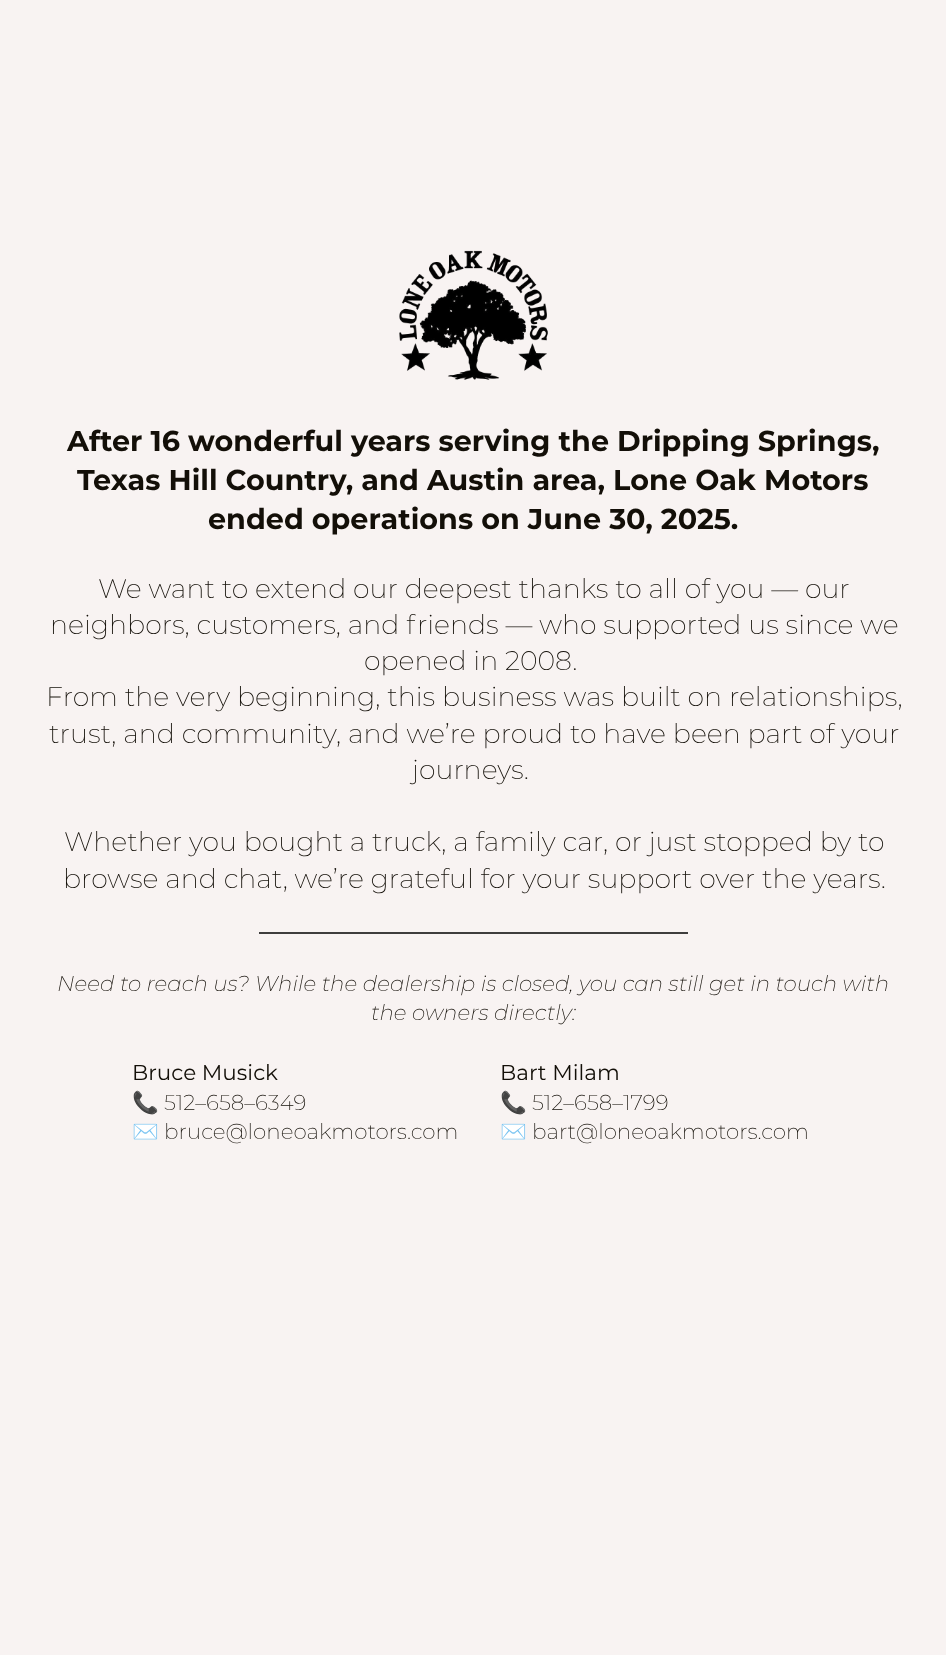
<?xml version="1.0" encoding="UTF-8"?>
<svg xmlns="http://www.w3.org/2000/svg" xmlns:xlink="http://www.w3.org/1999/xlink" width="946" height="1655">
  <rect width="100%" height="100%" fill="#f8f3f2" />
  <image x="399" y="250" width="149" height="130" xlink:href="image1.png" />
  <rect x="259" y="932" width="429" height="2" fill="#3e3d3d" />
  <text x="67" y="451" style="font-family: Montserrat; font-size: 28.65px; font-weight: bold; fill: #130f08">After 16 wonderful years serving the Dripping Springs,</text>
  <text x="77" y="490" style="font-family: Montserrat; font-size: 28.65px; font-weight: bold; fill: #130f08">Texas Hill Country, and Austin area, Lone Oak Motors</text>
  <text x="208" y="529" style="font-family: Montserrat; font-size: 28.65px; font-weight: bold; fill: #130f08">ended operations on June 30, 2025.</text>
  <text x="98" y="598" style="font-family: Montserrat; font-size: 26.9px; font-weight: 200; fill: #130f08">We want to extend our deepest thanks to all of you — our</text>
  <text x="50" y="634" style="font-family: Montserrat; font-size: 26.9px; font-weight: 200; fill: #130f08">neighbors, customers, and friends — who supported us since we</text>
  <text x="364" y="670" style="font-family: Montserrat; font-size: 26.9px; font-weight: 200; fill: #130f08">opened in 2008.</text>
  <text x="46" y="706" style="font-family: Montserrat; font-size: 26.9px; font-weight: 200; fill: #130f08">From the very beginning, this business was built on relationships,</text>
  <text x="49" y="743" style="font-family: Montserrat; font-size: 26.9px; font-weight: 200; fill: #130f08">trust, and community, and we’re proud to have been part of your</text>
  <text x="412" y="779" style="font-family: Montserrat; font-size: 26.9px; font-weight: 200; fill: #130f08">journeys.</text>
  <text x="64" y="851" style="font-family: Montserrat; font-size: 26.9px; font-weight: 200; fill: #130f08">Whether you bought a truck, a family car, or just stopped by to</text>
  <text x="63" y="888" style="font-family: Montserrat; font-size: 26.9px; font-weight: 200; fill: #130f08">browse and chat, we’re grateful for your support over the years.</text>
  <text x="57" y="991" style="font-family: Montserrat; font-size: 21.5px; font-weight: 200; font-style: italic; fill: #130f08">Need to reach us? While the dealership is closed, you can still get in touch with</text>
  <text x="371" y="1020" style="font-family: Montserrat; font-size: 21.5px; font-weight: 200; font-style: italic; fill: #130f08">the owners directly:</text>
  <text x="132" y="1080" style="font-family: Montserrat; font-size: 21.5px; fill: #130f08">Bruce Musick</text>
  <text x="132" y="1110" style="font-family: Noto Color Emoji; font-size: 21.5px; fill: #130f08">📞</text>
  <text x="164" y="1110" style="font-family: Montserrat; font-size: 21.5px; font-weight: 200; fill: #130f08">512–658–6349</text>
  <text x="132" y="1139" style="font-family: Noto Color Emoji; font-size: 21.5px; fill: #130f08">✉️</text>
  <text x="164" y="1139" style="font-family: Montserrat; font-size: 21.5px; font-weight: 200; fill: #130f08">bruce@loneoakmotors.com</text>
  <text x="500" y="1080" style="font-family: Montserrat; font-size: 21.5px; fill: #130f08">Bart Milam</text>
  <text x="500" y="1110" style="font-family: Noto Color Emoji; font-size: 21.5px; fill: #130f08">📞</text>
  <text x="532" y="1110" style="font-family: Montserrat; font-size: 21.5px; font-weight: 200; fill: #130f08">512–658–1799</text>
  <text x="500" y="1139" style="font-family: Noto Color Emoji; font-size: 21.5px; fill: #130f08">✉️</text>
  <text x="532" y="1139" style="font-family: Montserrat; font-size: 21.5px; font-weight: 200; fill: #130f08">bart@loneoakmotors.com</text>
</svg>
